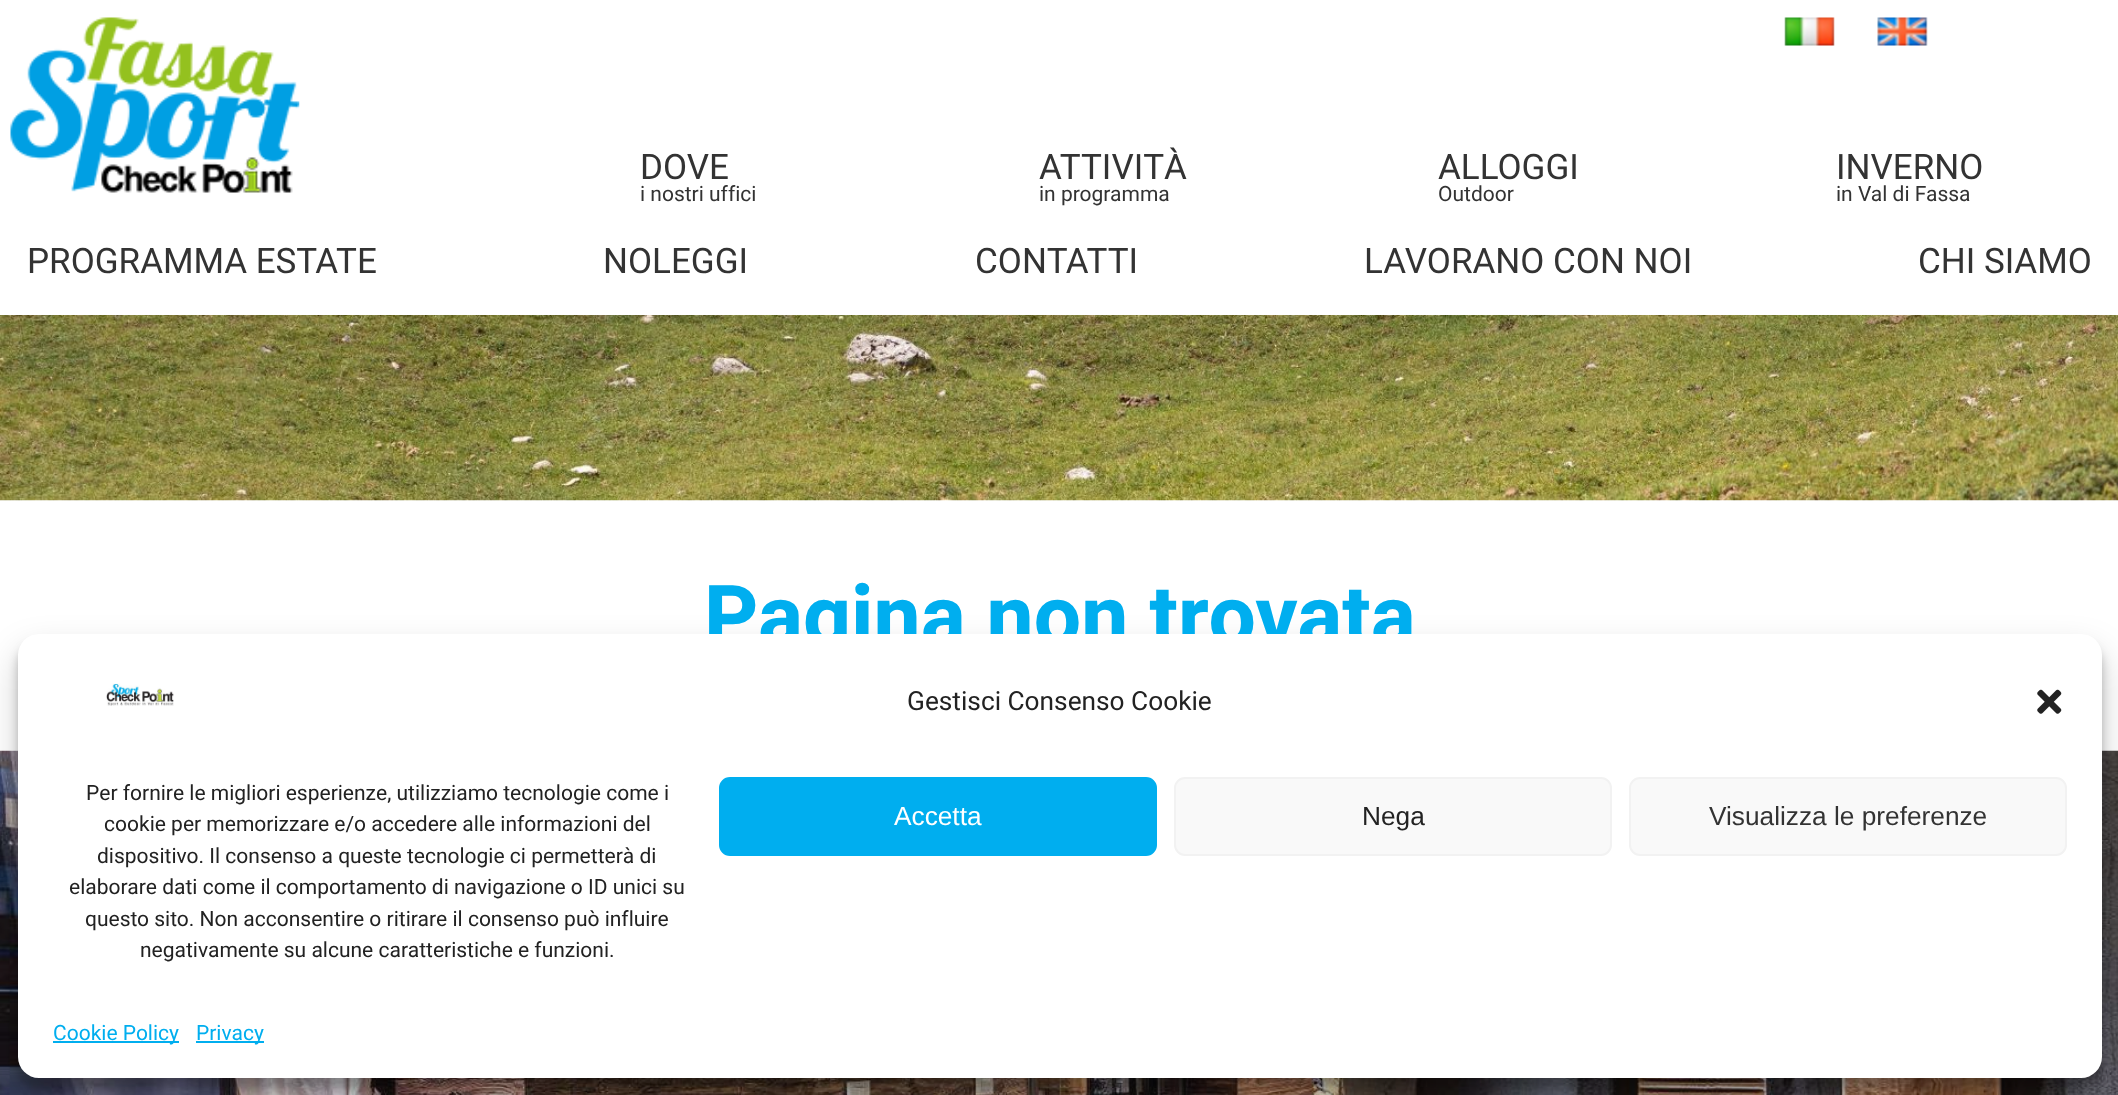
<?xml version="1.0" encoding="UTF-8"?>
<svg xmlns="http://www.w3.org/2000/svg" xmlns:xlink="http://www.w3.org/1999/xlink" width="2118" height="1095">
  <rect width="100%" height="100%" fill="#ffffff" />
  <image x="1784" y="17" width="51" height="29" xlink:href="image1.png" />
  <image x="1877" y="17" width="51" height="29" xlink:href="image2.png" />
  <image x="10" y="17" width="290" height="176" xlink:href="image3.png" />
  <image x="0" y="315" width="2118" height="186" xlink:href="image4.png" />
  <image x="0" y="750" width="2118" height="345" xlink:href="image7.png" />
  <rect x="18" y="644" width="2084" height="445" rx="21" fill="#000000" fill-opacity="0.23" filter="blur(5px)" />
  <rect x="18" y="651" width="2084" height="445" rx="21" fill="#000000" fill-opacity="0.19" filter="blur(17.5px)" />
  <text x="640" y="179" style="font-family: Heebo; font-size: 35px; fill: #333333">DOVE</text>
  <text x="640" y="201" style="font-family: Heebo; font-size: 21px; fill: #333333">i nostri uffici</text>
  <text x="1039" y="179" style="font-family: Heebo; font-size: 35px; fill: #333333">ATTIVITÀ</text>
  <text x="1039" y="201" style="font-family: Heebo; font-size: 21px; fill: #333333">in programma</text>
  <text x="1438" y="179" style="font-family: Heebo; font-size: 35px; fill: #333333">ALLOGGI</text>
  <text x="1438" y="201" style="font-family: Heebo; font-size: 21px; fill: #333333">Outdoor</text>
  <text x="1836" y="179" style="font-family: Heebo; font-size: 35px; fill: #333333">INVERNO</text>
  <text x="1836" y="201" style="font-family: Heebo; font-size: 21px; fill: #333333">in Val di Fassa</text>
  <text x="27" y="273" style="font-family: Heebo; font-size: 35px; fill: #333333">PROGRAMMA ESTATE</text>
  <text x="603" y="273" style="font-family: Heebo; font-size: 35px; fill: #333333">NOLEGGI</text>
  <text x="975" y="273" style="font-family: Heebo; font-size: 35px; fill: #333333">CONTATTI</text>
  <text x="1364" y="273" style="font-family: Heebo; font-size: 35px; fill: #333333">LAVORANO CON NOI</text>
  <text x="1918" y="273" style="font-family: Heebo; font-size: 35px; fill: #333333">CHI SIAMO</text>
  <text x="704" y="645" style="font-family: Heebo; font-size: 84px; font-weight: bold; fill: #00aeef">Pagina non trovata</text>
  <rect x="18" y="634" width="2084" height="444" rx="21" fill="#ffffff" />
  <image x="106" y="683" width="68" height="23" xlink:href="image5.png" />
  <text x="907" y="710" style="font-family: Heebo; font-size: 26.25px; fill: #222222">Gestisci Consenso Cookie</text>
  <image x="2037" y="689" width="25" height="25" xlink:href="image6.png" />
  <text x="86" y="800" style="font-family: Heebo; font-size: 21px; fill: #222222">Per fornire le migliori esperienze, utilizziamo tecnologie come i</text>
  <text x="104" y="831" style="font-family: Heebo; font-size: 21px; fill: #222222">cookie per memorizzare e/o accedere alle informazioni del</text>
  <text x="97" y="863" style="font-family: Heebo; font-size: 21px; fill: #222222">dispositivo. Il consenso a queste tecnologie ci permetterà di</text>
  <text x="69" y="894" style="font-family: Heebo; font-size: 21px; fill: #222222">elaborare dati come il comportamento di navigazione o ID unici su</text>
  <text x="85" y="926" style="font-family: Heebo; font-size: 21px; fill: #222222">questo sito. Non acconsentire o ritirare il consenso può influire</text>
  <text x="140" y="957" style="font-family: Heebo; font-size: 21px; fill: #222222">negativamente su alcune caratteristiche e funzioni.</text>
  <rect x="720" y="778" width="436" height="77" rx="10" fill="#00aeef" stroke="#00aeef" stroke-width="2" />
  <text x="894" y="825" style="font-family: Liberation Sans; font-size: 26.25px; fill: #ffffff">Accetta</text>
  <rect x="1175" y="778" width="436" height="77" rx="10" fill="#f9f9f9" stroke="#f2f2f2" stroke-width="2" />
  <text x="1362" y="825" style="font-family: Liberation Sans; font-size: 26.25px; fill: #222222">Nega</text>
  <rect x="1630" y="778" width="436" height="77" rx="10" fill="#f9f9f9" stroke="#f2f2f2" stroke-width="2" />
  <text x="1709" y="825" style="font-family: Liberation Sans; font-size: 26.25px; fill: #333333">Visualizza le preferenze</text>
  <rect x="53" y="1041" width="126" height="2" fill="#00aeef" />
  <text x="53" y="1040" style="font-family: Heebo; font-size: 21px; fill: #00aeef">Cookie Policy</text>
  <rect x="196" y="1041" width="68" height="2" fill="#00aeef" />
  <text x="196" y="1040" style="font-family: Heebo; font-size: 21px; fill: #00aeef">Privacy</text>
</svg>
